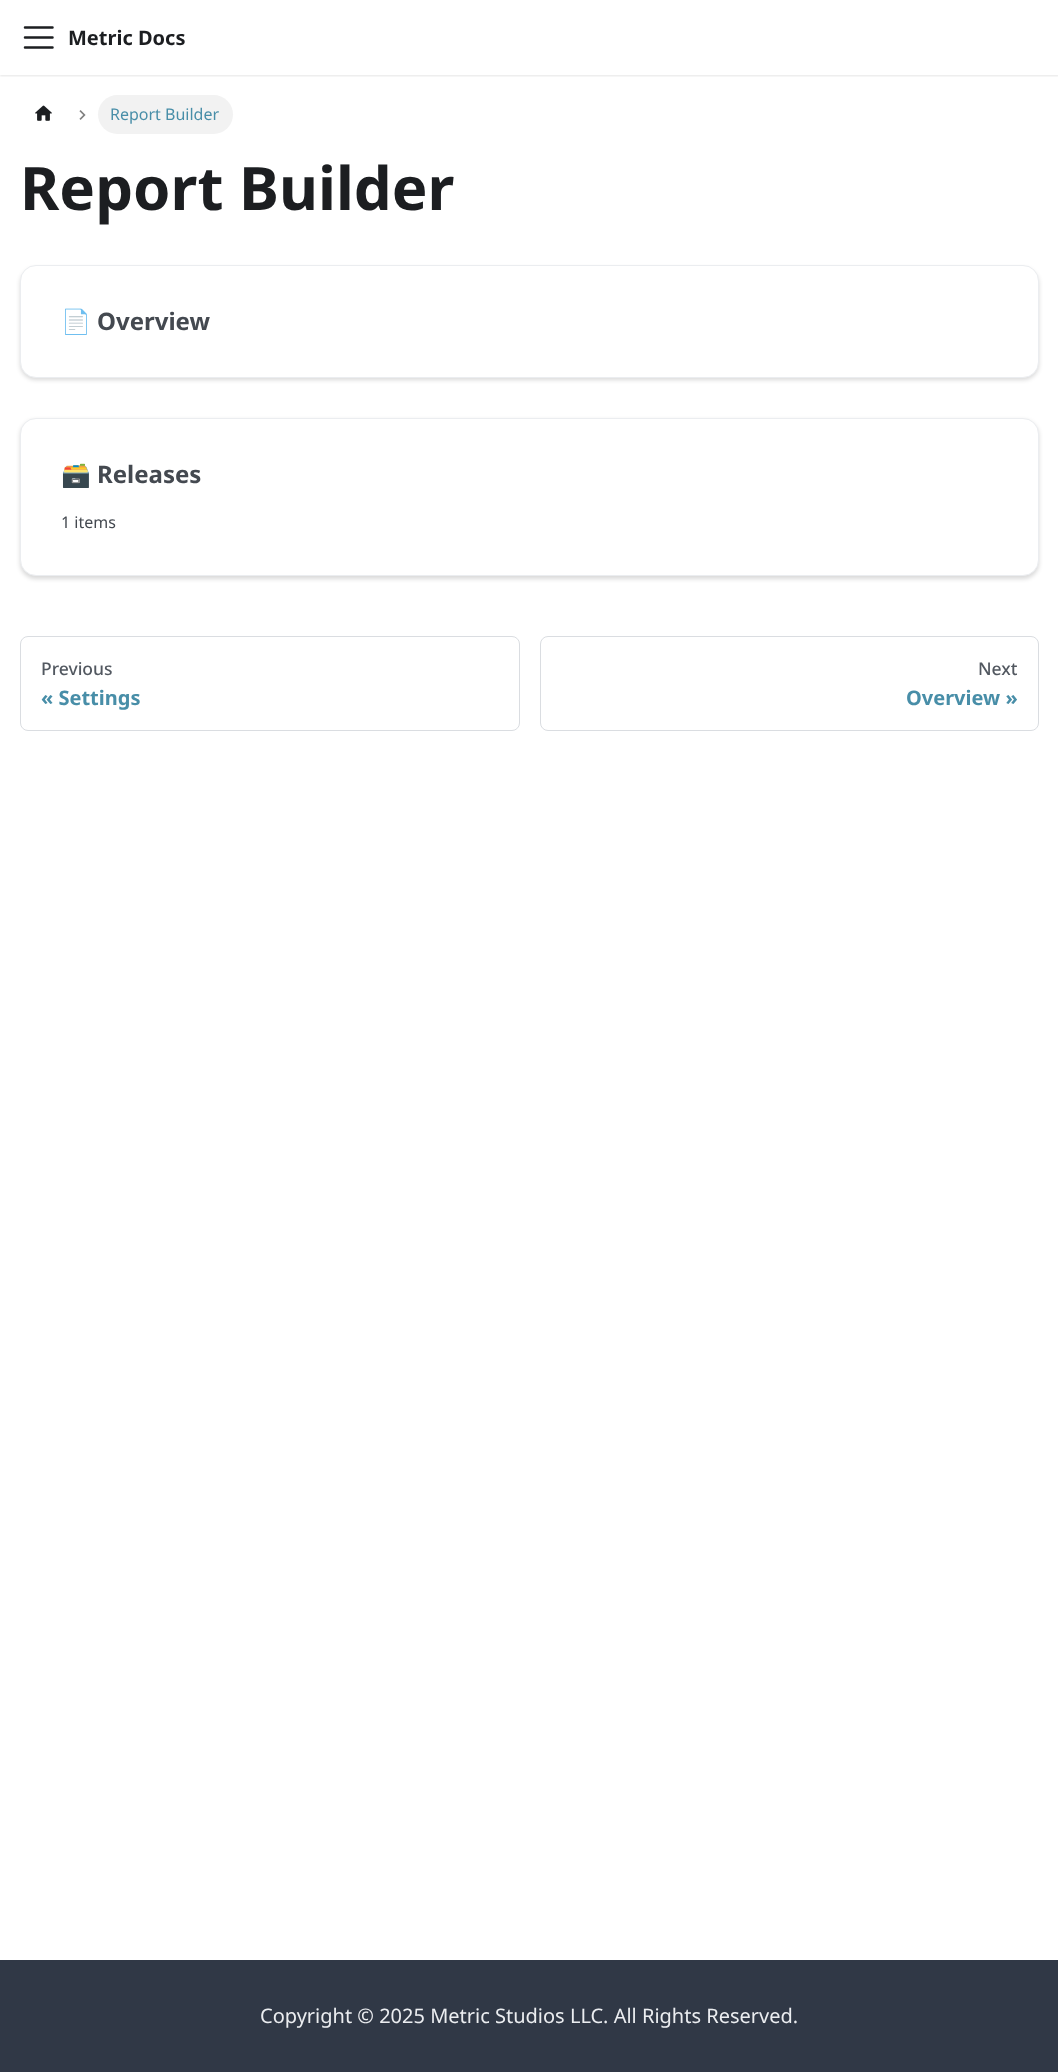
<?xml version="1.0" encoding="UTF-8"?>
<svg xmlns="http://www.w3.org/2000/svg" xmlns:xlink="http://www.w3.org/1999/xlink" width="1058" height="2072">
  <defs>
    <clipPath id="clip1"><rect x="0" y="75" width="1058" height="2" /></clipPath>
  </defs>
  <rect width="100%" height="100%" fill="#ffffff" />
  <g clip-path="url(#clip1)">
    <rect y="1" width="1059" height="75" fill="#000000" fill-opacity="0.1" filter="blur(1px)" />
  </g>
  <path d="M 25 27.5 h 27.5 m -27.5 10 h 27.5 m -27.5 10 h 27.5" fill="none" stroke="#1c1e21" stroke-width="2.5" stroke-linecap="round" />
  <image x="35" y="105" width="17" height="16" xlink:href="image1.png" />
  <image x="79" y="110" width="7" height="10" xlink:href="image2.png" />
  <rect x="98" y="95" width="135" height="39" rx="19.5" fill="#f2f2f2" />
  <rect x="20" y="268" width="1019" height="112" rx="16" fill="#000000" fill-opacity="0.15" filter="blur(2px)" />
  <rect x="20.5" y="265.5" width="1018" height="112" rx="15.5" fill="#ffffff" stroke="#ebedf0" />
  <rect x="20" y="420" width="1019" height="159" rx="16" fill="#000000" fill-opacity="0.15" filter="blur(2px)" />
  <rect x="20.5" y="418.5" width="1018" height="157" rx="15.5" fill="#ffffff" stroke="#ebedf0" />
  <rect x="20.5" y="636.5" width="499" height="94" rx="7.5" fill="none" stroke="#dadde1" />
  <rect x="540.5" y="636.5" width="498" height="94" rx="7.5" fill="none" stroke="#dadde1" />
  <rect y="1960" width="1058" height="112" fill="#303846" />
  <text x="68" y="45" style="font-family: Noto Sans; font-size: 20px; font-weight: bold; fill: #1c1e21">Metric Docs</text>
  <text x="110" y="120" style="font-family: Noto Sans; font-size: 16px; fill: #488ea8">Report Builder</text>
  <text x="20" y="210" style="font-family: Noto Sans; font-size: 60px; font-weight: bold; fill: #1c1e21">Report Builder</text>
  <text x="61" y="330" style="font-family: Noto Color Emoji; font-size: 24px; font-weight: bold; fill: #444950">📄️</text>
  <text x="97" y="330" style="font-family: Noto Sans; font-size: 24px; font-weight: bold; fill: #444950">Overview</text>
  <text x="61" y="483" style="font-family: Noto Color Emoji; font-size: 24px; font-weight: bold; fill: #444950">🗃️</text>
  <text x="97" y="483" style="font-family: Noto Sans; font-size: 24px; font-weight: bold; fill: #444950">Releases</text>
  <text x="61" y="528" style="font-family: Noto Sans; font-size: 16px; fill: #444950">1 items</text>
  <text x="41" y="675" style="font-family: Noto Sans; font-size: 17.5px; font-weight: 500; fill: #525860">Previous</text>
  <text x="41" y="705" style="font-family: Noto Sans; font-size: 20px; font-weight: bold; fill: #488ea8">« Settings</text>
  <text x="978" y="675" style="font-family: Noto Sans; font-size: 17.5px; font-weight: 500; fill: #525860">Next</text>
  <text x="906" y="705" style="font-family: Noto Sans; font-size: 20px; font-weight: bold; fill: #488ea8">Overview »</text>
  <text x="260" y="2023" style="font-family: Noto Sans; font-size: 20px; fill: #ebedf0">Copyright © 2025 Metric Studios LLC. All Rights Reserved.</text>
</svg>
